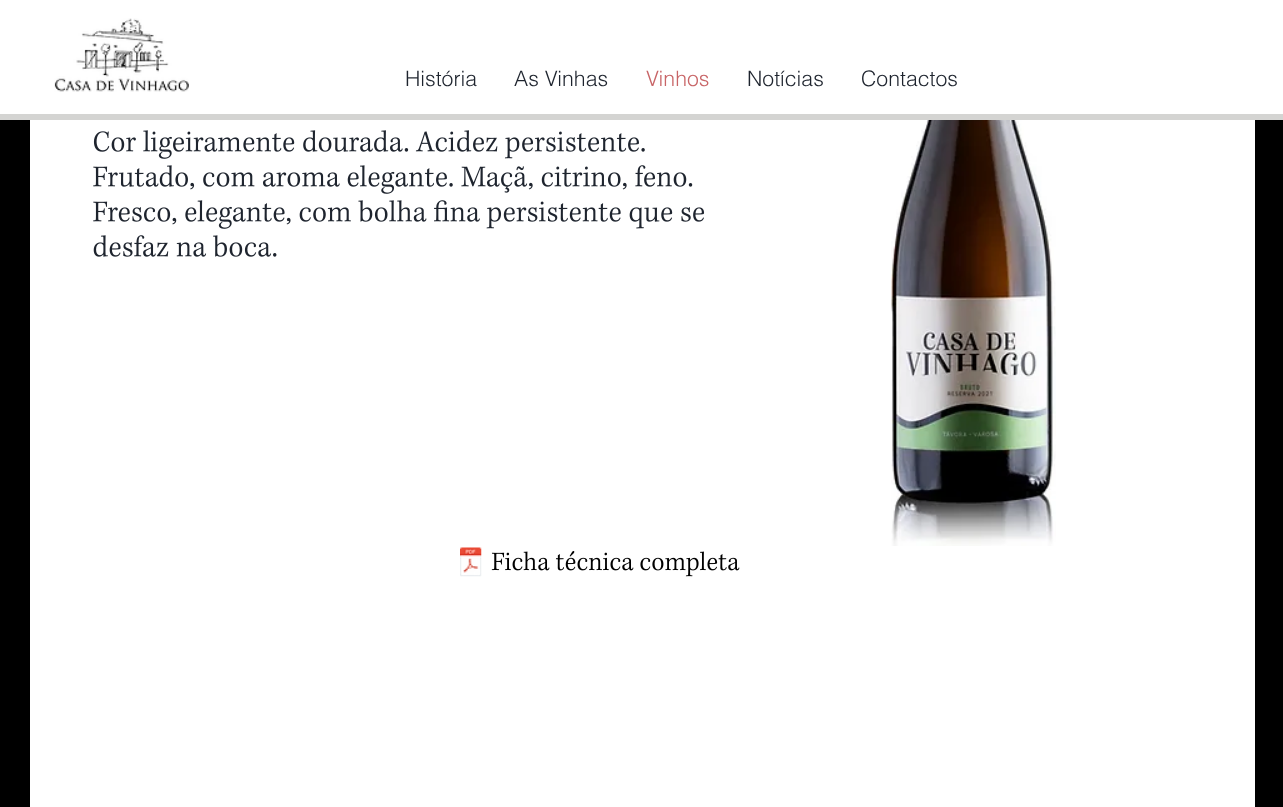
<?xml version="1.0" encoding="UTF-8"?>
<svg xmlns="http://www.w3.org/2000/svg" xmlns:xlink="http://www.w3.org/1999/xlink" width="1283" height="807">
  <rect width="100%" height="100%" fill="#000000" />
  <rect width="1283" height="114" fill="#ffffff" />
  <rect y="114" width="1283" height="6" fill="#d4d4d2" />
  <image x="54" y="18" width="135" height="74" xlink:href="image1.png" />
  <rect x="30" y="120" width="1225" height="687" fill="#ffffff" />
  <image x="93" y="130" width="552" height="29" xlink:href="image2.png" />
  <image x="93" y="165" width="600" height="29" xlink:href="image3.png" />
  <image x="93" y="200" width="612" height="29" xlink:href="image4.png" />
  <image x="93" y="235" width="184" height="22" xlink:href="image5.png" />
  <image x="891" y="120" width="165" height="426" xlink:href="image6.png" />
  <image x="460" y="547" width="22" height="30" xlink:href="image7.png" />
  <image x="491" y="551" width="249" height="26" xlink:href="image8.png" />
  <text x="405" y="86" style="font-family: helvetica; font-size: 21.25px; font-weight: 300; fill: #1e242e">História</text>
  <text x="514" y="86" style="font-family: helvetica; font-size: 21.25px; font-weight: 300; fill: #1e242e">As Vinhas</text>
  <text x="646" y="86" style="font-family: helvetica; font-size: 21.25px; font-weight: 300; fill: #c86567">Vinhos</text>
  <text x="747" y="86" style="font-family: helvetica; font-size: 21.25px; font-weight: 300; fill: #1e242e">Notícias</text>
  <text x="861" y="86" style="font-family: helvetica; font-size: 21.25px; font-weight: 300; fill: #1e242e">Contactos</text>
</svg>
